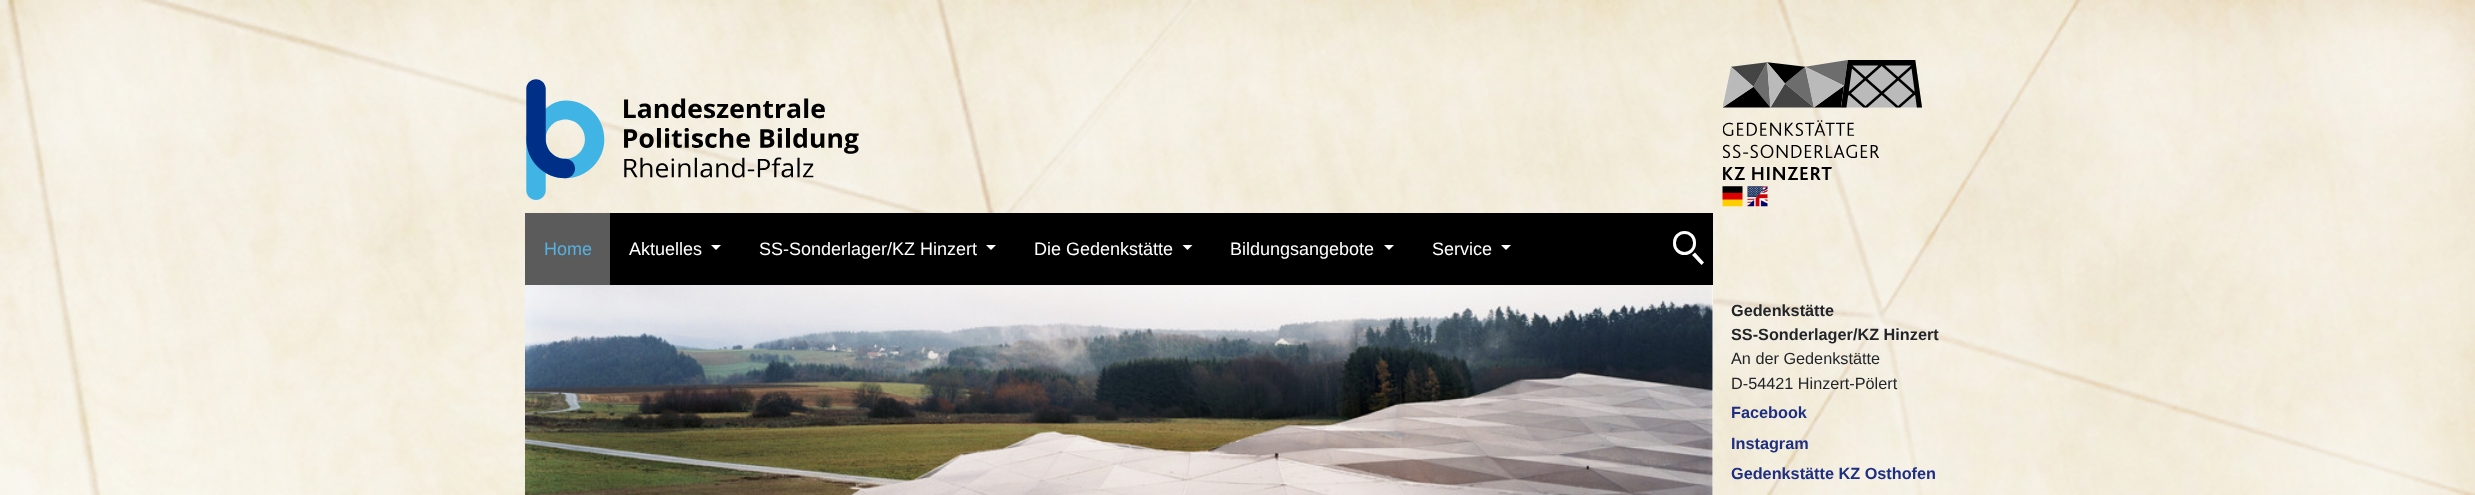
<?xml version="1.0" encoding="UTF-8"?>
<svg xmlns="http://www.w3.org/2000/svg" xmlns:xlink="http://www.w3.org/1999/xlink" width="2475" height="495">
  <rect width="100%" height="100%" fill="#ffffff" />
  <image x="0" y="0" width="2475" height="495" xlink:href="image1.png" />
  <image x="526" y="79" width="333" height="121" xlink:href="image2.png" />
  <image x="1723" y="60" width="199" height="120" xlink:href="image3.png" />
  <image x="1722" y="186" width="21" height="21" xlink:href="image4.png" />
  <image x="1747" y="186" width="21" height="21" xlink:href="image5.png" />
  <rect x="610" y="213" width="1103" height="72" fill="#000000" />
  <rect x="525" y="213" width="85" height="72" fill="#5b5b5b" />
  <path d="M 711 245 h 10 l -5 5 z" fill="#ffffff" />
  <path d="M 986 245 h 10 l -5 5 z" fill="#ffffff" />
  <path d="M 1182.5 245 h 10 l -5 5 z" fill="#ffffff" />
  <path d="M 1384 245 h 10 l -5 5 z" fill="#ffffff" />
  <path d="M 1501 245 h 10 l -5 5 z" fill="#ffffff" />
  <rect x="1674.5" y="232.5" width="20" height="21" rx="10" fill="none" stroke="#ffffff" stroke-width="3" />
  <path d="M 1695 252.5 l 9 10 l -2.5 2.5 l -9.5 -10 z" fill="#ffffff" />
  <rect x="1712" y="285" width="1" height="210" fill="#ffffff" />
  <image x="525" y="285" width="1188" height="210" xlink:href="image6.png" />
  <text x="544" y="255" style="font-family: Liberation Sans; font-size: 18px; fill: #57b1e0">Home</text>
  <text x="629" y="255" style="font-family: Liberation Sans; font-size: 18px; fill: #ffffff">Aktuelles</text>
  <text x="759" y="255" style="font-family: Liberation Sans; font-size: 18px; fill: #ffffff">SS-Sonderlager/KZ Hinzert</text>
  <text x="1034" y="255" style="font-family: Liberation Sans; font-size: 18px; fill: #ffffff">Die Gedenkstätte</text>
  <text x="1230" y="255" style="font-family: Liberation Sans; font-size: 18px; fill: #ffffff">Bildungsangebote</text>
  <text x="1432" y="255" style="font-family: Liberation Sans; font-size: 18px; fill: #ffffff">Service</text>
  <text x="1731" y="316" style="font-family: Liberation Sans; font-size: 16.25px; font-weight: bold; fill: #212529">Gedenkstätte</text>
  <text x="1731" y="340" style="font-family: Liberation Sans; font-size: 16.25px; font-weight: bold; fill: #212529">SS-Sonderlager/KZ Hinzert</text>
  <text x="1731" y="364" style="font-family: Liberation Sans; font-size: 16.25px; fill: #212529">An der Gedenkstätte</text>
  <text x="1731" y="389" style="font-family: Liberation Sans; font-size: 16.25px; fill: #212529">D-54421 Hinzert-Pölert</text>
  <text x="1731" y="418" style="font-family: Liberation Sans; font-size: 16.25px; font-weight: bold; fill: #1e2e81">Facebook</text>
  <text x="1731" y="449" style="font-family: Liberation Sans; font-size: 16.25px; font-weight: bold; fill: #1e2e81">Instagram</text>
  <text x="1731" y="479" style="font-family: Liberation Sans; font-size: 16.25px; font-weight: bold; fill: #1e2e81">Gedenkstätte KZ Osthofen</text>
</svg>
